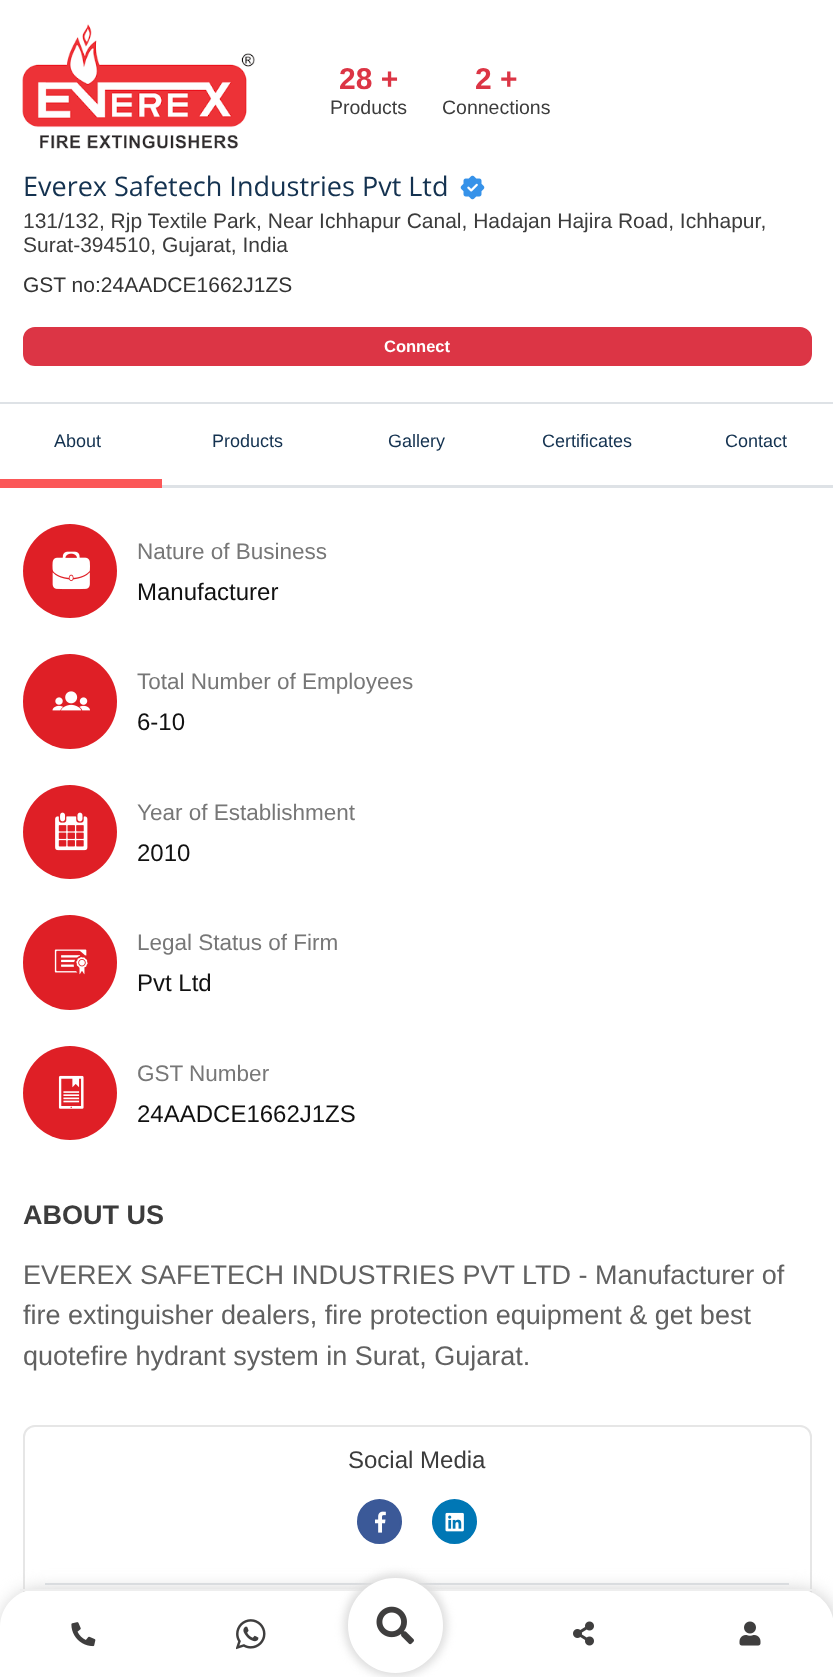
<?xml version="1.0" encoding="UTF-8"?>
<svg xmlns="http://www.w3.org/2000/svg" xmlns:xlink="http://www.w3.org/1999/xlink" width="833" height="1677">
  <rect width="100%" height="100%" fill="#ffffff" />
  <image x="22" y="24" width="233" height="125" xlink:href="image1.png" />
  <image x="460" y="175" width="25" height="25" xlink:href="image2.png" />
  <rect x="24" y="328" width="787" height="37" rx="11" fill="#dc3545" stroke="#dc3545" stroke-width="2" />
  <rect y="402" width="833" height="2" fill="#dee2e6" />
  <rect y="479" width="162" height="9" fill="#fb5758" />
  <rect x="162" y="485" width="671" height="3" fill="#dee2e6" />
  <circle cx="70" cy="571" r="47" fill="#df1f26" />
  <image x="52" y="551" width="38" height="39" xlink:href="image3.png" />
  <rect x="23" y="654" width="94" height="95" rx="47" fill="#df1f26" />
  <image x="52" y="691" width="38" height="20" xlink:href="image4.png" />
  <circle cx="70" cy="832" r="47" fill="#df1f26" />
  <image x="55" y="812" width="33" height="39" xlink:href="image5.png" />
  <rect x="23" y="915" width="94" height="95" rx="47" fill="#df1f26" />
  <image x="54" y="949" width="34" height="26" xlink:href="image6.png" />
  <circle cx="70" cy="1093" r="47" fill="#df1f26" />
  <image x="58" y="1075" width="26" height="34" xlink:href="image7.png" />
  <rect x="24" y="1426" width="787" height="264" rx="11" fill="none" stroke="#e6e6e6" stroke-width="2" />
  <rect x="45" y="1583" width="744" height="2" fill="#dee2e6" />
  <circle cx="379.5" cy="1521.5" r="21.5" fill="#3b5998" stroke="#3b5998" stroke-width="2" />
  <image x="375" y="1511" width="11" height="22" xlink:href="image8.png" />
  <circle cx="454.5" cy="1521.5" r="21.5" fill="#0077b5" stroke="#0077b5" stroke-width="2" />
  <image x="445" y="1512" width="19" height="20" xlink:href="image9.png" />
  <rect x="2" y="1590" width="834" height="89" rx="38" fill="#cdcdcd" filter="blur(9px)" />
  <path d="M 38 1589 h 758 c 21 0 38 17 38 38 v 50 h -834 v -50 c 0 -21 17 -38 38 -38 z" fill="#ffffff" />
  <rect x="20" y="1589" width="796" height="2" fill="#eeeeee" />
  <image x="71" y="1622" width="25" height="25" xlink:href="image10.png" />
  <image x="236" y="1619" width="30" height="31" xlink:href="image11.png" />
  <rect x="344" y="1574" width="103" height="103" rx="51.5" fill="#dddddd" filter="blur(4.5px)" />
  <circle cx="395.5" cy="1625.5" r="46.5" fill="#ffffff" stroke="#ffffff" stroke-width="2" />
  <image x="376" y="1606" width="38" height="39" xlink:href="image12.png" />
  <image x="573" y="1621" width="21" height="25" xlink:href="image13.png" />
  <image x="739" y="1621" width="22" height="25" xlink:href="image14.png" />
  <text x="339" y="89" style="font-family: Liberation Sans; font-size: 30px; font-weight: bold; fill: #dc3545">28 +</text>
  <text x="330" y="114" style="font-family: Liberation Sans; font-size: 19.5px; fill: #3c3c3c">Products</text>
  <text x="475" y="89" style="font-family: Liberation Sans; font-size: 30px; font-weight: bold; fill: #dc3545">2 +</text>
  <text x="442" y="114" style="font-family: Liberation Sans; font-size: 19.5px; fill: #3c3c3c">Connections</text>
  <text x="23" y="196" style="font-family: Open Sans; font-size: 27px; fill: #143250">Everex Safetech Industries Pvt Ltd</text>
  <text x="23" y="228" style="font-family: Liberation Sans; font-size: 21px; fill: #3c3c3c">131/132, Rjp Textile Park, Near Ichhapur Canal, Hadajan Hajira Road, Ichhapur,</text>
  <text x="23" y="252" style="font-family: Liberation Sans; font-size: 21px; fill: #3c3c3c">Surat-394510, Gujarat, India</text>
  <text x="23" y="292" style="font-family: Liberation Sans; font-size: 21px; fill: #333333">GST no:24AADCE1662J1ZS</text>
  <text x="384" y="352" style="font-family: Liberation Sans; font-size: 16.5px; font-weight: bold; fill: #ffffff">Connect</text>
  <text x="54" y="447" style="font-family: Liberation Sans; font-size: 18px; fill: #143250">About</text>
  <text x="212" y="447" style="font-family: Liberation Sans; font-size: 18px; fill: #143250">Products</text>
  <text x="388" y="447" style="font-family: Liberation Sans; font-size: 18px; fill: #143250">Gallery</text>
  <text x="542" y="447" style="font-family: Liberation Sans; font-size: 18px; fill: #143250">Certificates</text>
  <text x="725" y="447" style="font-family: Liberation Sans; font-size: 18px; fill: #143250">Contact</text>
  <text x="137" y="559" style="font-family: Liberation Sans; font-size: 22.5px; fill: #777777">Nature of Business</text>
  <text x="137" y="600" style="font-family: Liberation Sans; font-size: 24px; fill: #111111">Manufacturer</text>
  <text x="137" y="689" style="font-family: Liberation Sans; font-size: 22.5px; fill: #777777">Total Number of Employees</text>
  <text x="137" y="730" style="font-family: Liberation Sans; font-size: 24px; fill: #111111">6-10</text>
  <text x="137" y="820" style="font-family: Liberation Sans; font-size: 22.5px; fill: #777777">Year of Establishment</text>
  <text x="137" y="861" style="font-family: Liberation Sans; font-size: 24px; fill: #111111">2010</text>
  <text x="137" y="950" style="font-family: Liberation Sans; font-size: 22.5px; fill: #777777">Legal Status of Firm</text>
  <text x="137" y="991" style="font-family: Liberation Sans; font-size: 24px; fill: #111111">Pvt Ltd</text>
  <text x="137" y="1081" style="font-family: Liberation Sans; font-size: 22.5px; fill: #777777">GST Number</text>
  <text x="137" y="1122" style="font-family: Liberation Sans; font-size: 24px; fill: #111111">24AADCE1662J1ZS</text>
  <text x="23" y="1224" style="font-family: Liberation Sans; font-size: 27px; font-weight: bold; fill: #3c3c3c">ABOUT US</text>
  <text x="23" y="1284" style="font-family: Liberation Sans; font-size: 27px; fill: #616161">EVEREX SAFETECH INDUSTRIES PVT LTD - Manufacturer of</text>
  <text x="23" y="1324" style="font-family: Liberation Sans; font-size: 27px; fill: #616161">fire extinguisher dealers, fire protection equipment &amp; get best</text>
  <text x="23" y="1365" style="font-family: Liberation Sans; font-size: 27px; fill: #616161">quotefire hydrant system in Surat, Gujarat.</text>
  <text x="348" y="1468" style="font-family: Liberation Sans; font-size: 24px; fill: #3c3c3c">Social Media</text>
</svg>
